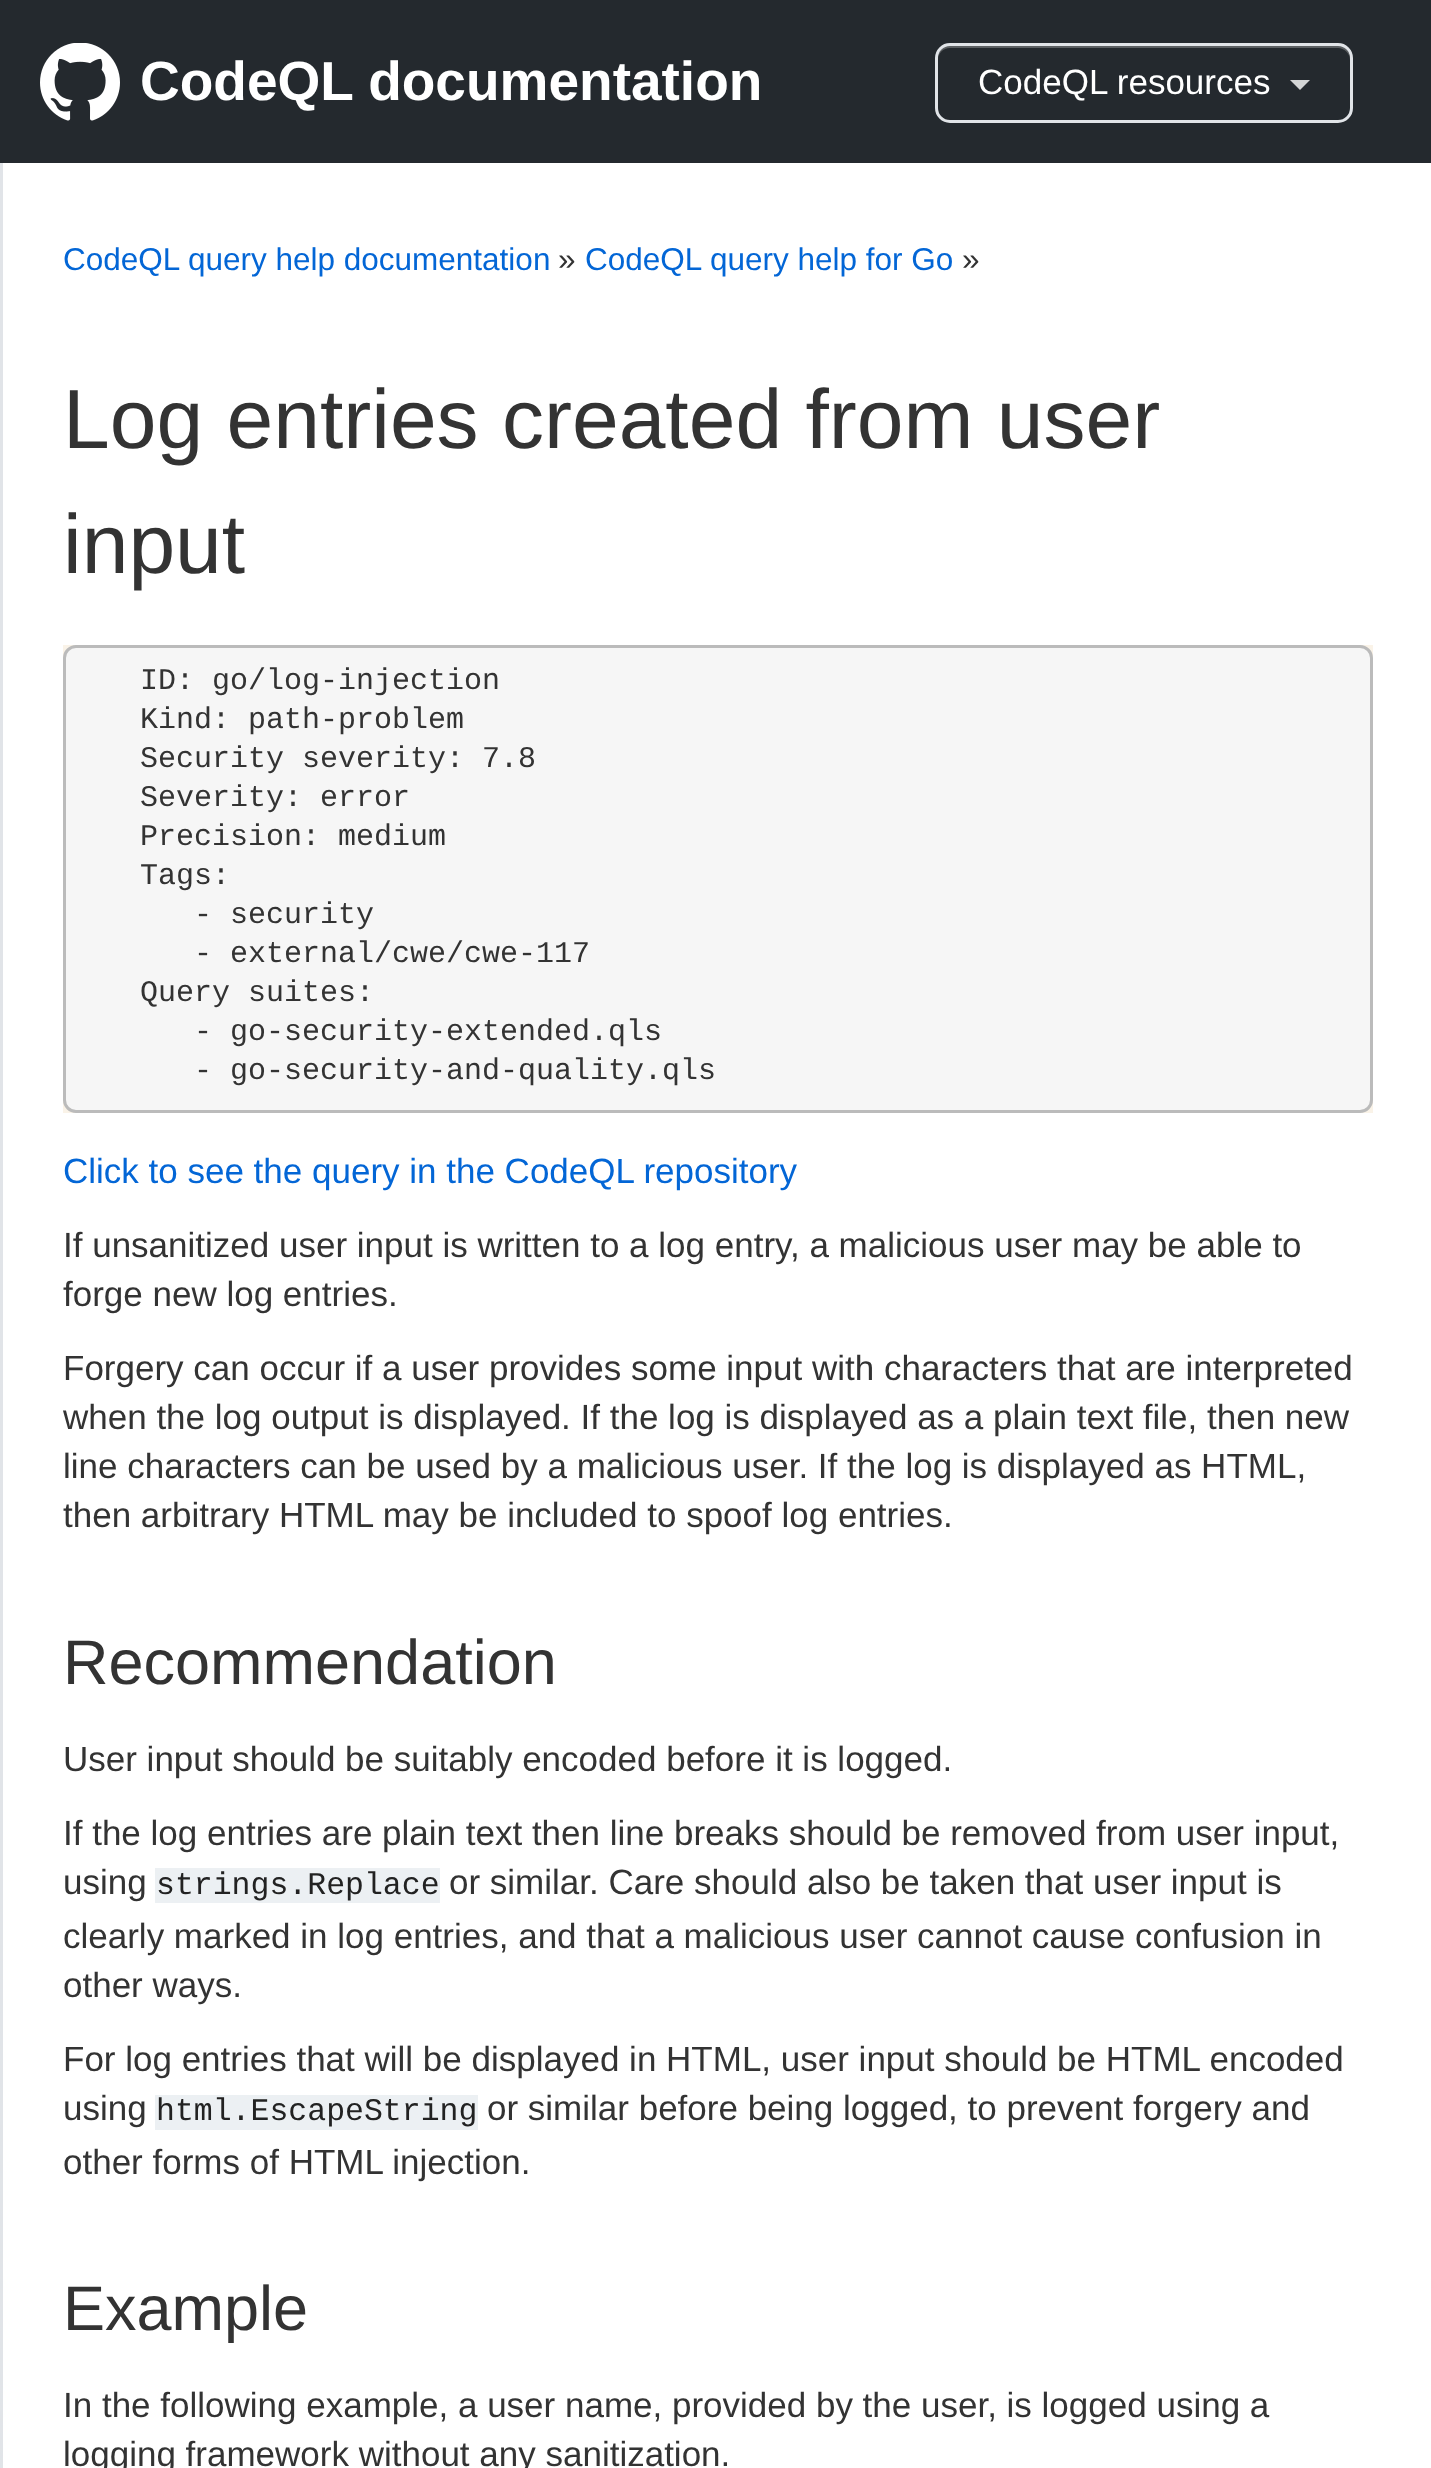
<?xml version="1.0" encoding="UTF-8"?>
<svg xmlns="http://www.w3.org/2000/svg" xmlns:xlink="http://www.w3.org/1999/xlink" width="1431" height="2468">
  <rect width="100%" height="100%" fill="#24292e" />
  <image x="40" y="43" width="80" height="78" xlink:href="image1.png" />
  <path d="M 950 48 h 388 c 6 0 12 5 12 12 v -2 c 0 -7 -6 -13 -13 -13 h -386 c -7 0 -13 6 -13 13 v 2 c 0 -7 5 -12 12 -12 z" fill="#5b5f62" />
  <rect x="936.5" y="44.5" width="415" height="77" rx="13.5" fill="none" stroke="#e1e4e8" stroke-width="3" />
  <path d="M 1290 80 h 20 l -10 10 z" fill="#d3d4d5" />
  <rect x="3" y="163" width="1428" height="2305" fill="#ffffff" />
  <rect y="163" width="3" height="2305" fill="#e1e4e8" />
  <rect x="63" y="645" width="1310" height="468" fill="#faf3e8" />
  <rect x="64.5" y="646.5" width="1307" height="465" rx="11.5" fill="#f6f6f6" stroke="#bbbbbb" stroke-width="3" />
  <rect x="155" y="1868" width="285" height="35" fill="#ecf0f3" />
  <rect x="155" y="2095" width="323" height="35" fill="#ecf0f3" />
  <text x="140" y="100" style="font-family: Liberation Sans; font-size: 55px; font-weight: bold; fill: #ffffff">CodeQL documentation</text>
  <text x="978" y="94" style="font-family: Liberation Sans; font-size: 35px; fill: #ffffff">CodeQL resources</text>
  <text x="63" y="270" style="font-family: Liberation Sans; font-size: 31.5px; fill: #0366d6">CodeQL query help documentation</text>
  <text x="558" y="270" style="font-family: Liberation Sans; font-size: 31.5px; fill: #333333">»</text>
  <text x="585" y="270" style="font-family: Liberation Sans; font-size: 31.5px; fill: #0366d6">CodeQL query help for Go</text>
  <text x="962" y="270" style="font-family: Liberation Sans; font-size: 31.5px; fill: #333333">»</text>
  <text x="63" y="448" style="font-family: Liberation Sans; font-size: 84px; fill: #333333">Log entries created from user</text>
  <text x="63" y="573" style="font-family: Liberation Sans; font-size: 84px; fill: #333333">input</text>
  <text x="140" y="689" style="font-family: Liberation Mono; font-size: 30px; fill: #333333">ID: go/log-injection</text>
  <text x="140" y="728" style="font-family: Liberation Mono; font-size: 30px; fill: #333333">Kind: path-problem</text>
  <text x="140" y="767" style="font-family: Liberation Mono; font-size: 30px; fill: #333333">Security severity: 7.8</text>
  <text x="140" y="806" style="font-family: Liberation Mono; font-size: 30px; fill: #333333">Severity: error</text>
  <text x="140" y="845" style="font-family: Liberation Mono; font-size: 30px; fill: #333333">Precision: medium</text>
  <text x="140" y="884" style="font-family: Liberation Mono; font-size: 30px; fill: #333333">Tags:</text>
  <text x="194" y="923" style="font-family: Liberation Mono; font-size: 30px; fill: #333333">- security</text>
  <text x="194" y="962" style="font-family: Liberation Mono; font-size: 30px; fill: #333333">- external/cwe/cwe-117</text>
  <text x="140" y="1001" style="font-family: Liberation Mono; font-size: 30px; fill: #333333">Query suites:</text>
  <text x="194" y="1040" style="font-family: Liberation Mono; font-size: 30px; fill: #333333">- go-security-extended.qls</text>
  <text x="194" y="1079" style="font-family: Liberation Mono; font-size: 30px; fill: #333333">- go-security-and-quality.qls</text>
  <text x="63" y="1183" style="font-family: Liberation Sans; font-size: 35px; fill: #0366d6">Click to see the query in the CodeQL repository</text>
  <text x="63" y="1257" style="font-family: Liberation Sans; font-size: 35px; fill: #333333">If unsanitized user input is written to a log entry, a malicious user may be able to</text>
  <text x="63" y="1306" style="font-family: Liberation Sans; font-size: 35px; fill: #333333">forge new log entries.</text>
  <text x="63" y="1380" style="font-family: Liberation Sans; font-size: 35px; fill: #333333">Forgery can occur if a user provides some input with characters that are interpreted</text>
  <text x="63" y="1429" style="font-family: Liberation Sans; font-size: 35px; fill: #333333">when the log output is displayed. If the log is displayed as a plain text file, then new</text>
  <text x="63" y="1478" style="font-family: Liberation Sans; font-size: 35px; fill: #333333">line characters can be used by a malicious user. If the log is displayed as HTML,</text>
  <text x="63" y="1527" style="font-family: Liberation Sans; font-size: 35px; fill: #333333">then arbitrary HTML may be included to spoof log entries.</text>
  <text x="63" y="1684" style="font-family: Liberation Sans; font-size: 63px; fill: #333333">Recommendation</text>
  <text x="63" y="1771" style="font-family: Liberation Sans; font-size: 35px; fill: #333333">User input should be suitably encoded before it is logged.</text>
  <text x="63" y="1845" style="font-family: Liberation Sans; font-size: 35px; fill: #333333">If the log entries are plain text then line breaks should be removed from user input,</text>
  <text x="63" y="1894" style="font-family: Liberation Sans; font-size: 35px; fill: #333333">using</text>
  <text x="156" y="1894" style="font-family: Liberation Mono; font-size: 31.5px; fill: #222222">strings.Replace</text>
  <text x="449" y="1894" style="font-family: Liberation Sans; font-size: 35px; fill: #333333">or similar. Care should also be taken that user input is</text>
  <text x="63" y="1948" style="font-family: Liberation Sans; font-size: 35px; fill: #333333">clearly marked in log entries, and that a malicious user cannot cause confusion in</text>
  <text x="63" y="1997" style="font-family: Liberation Sans; font-size: 35px; fill: #333333">other ways.</text>
  <text x="63" y="2071" style="font-family: Liberation Sans; font-size: 35px; fill: #333333">For log entries that will be displayed in HTML, user input should be HTML encoded</text>
  <text x="63" y="2120" style="font-family: Liberation Sans; font-size: 35px; fill: #333333">using</text>
  <text x="156" y="2120" style="font-family: Liberation Mono; font-size: 31.5px; fill: #222222">html.EscapeString</text>
  <text x="487" y="2120" style="font-family: Liberation Sans; font-size: 35px; fill: #333333">or similar before being logged, to prevent forgery and</text>
  <text x="63" y="2174" style="font-family: Liberation Sans; font-size: 35px; fill: #333333">other forms of HTML injection.</text>
  <text x="63" y="2330" style="font-family: Liberation Sans; font-size: 63px; fill: #333333">Example</text>
  <text x="63" y="2417" style="font-family: Liberation Sans; font-size: 35px; fill: #333333">In the following example, a user name, provided by the user, is logged using a</text>
  <text x="63" y="2466" style="font-family: Liberation Sans; font-size: 35px; fill: #333333">logging framework without any sanitization.</text>
</svg>
